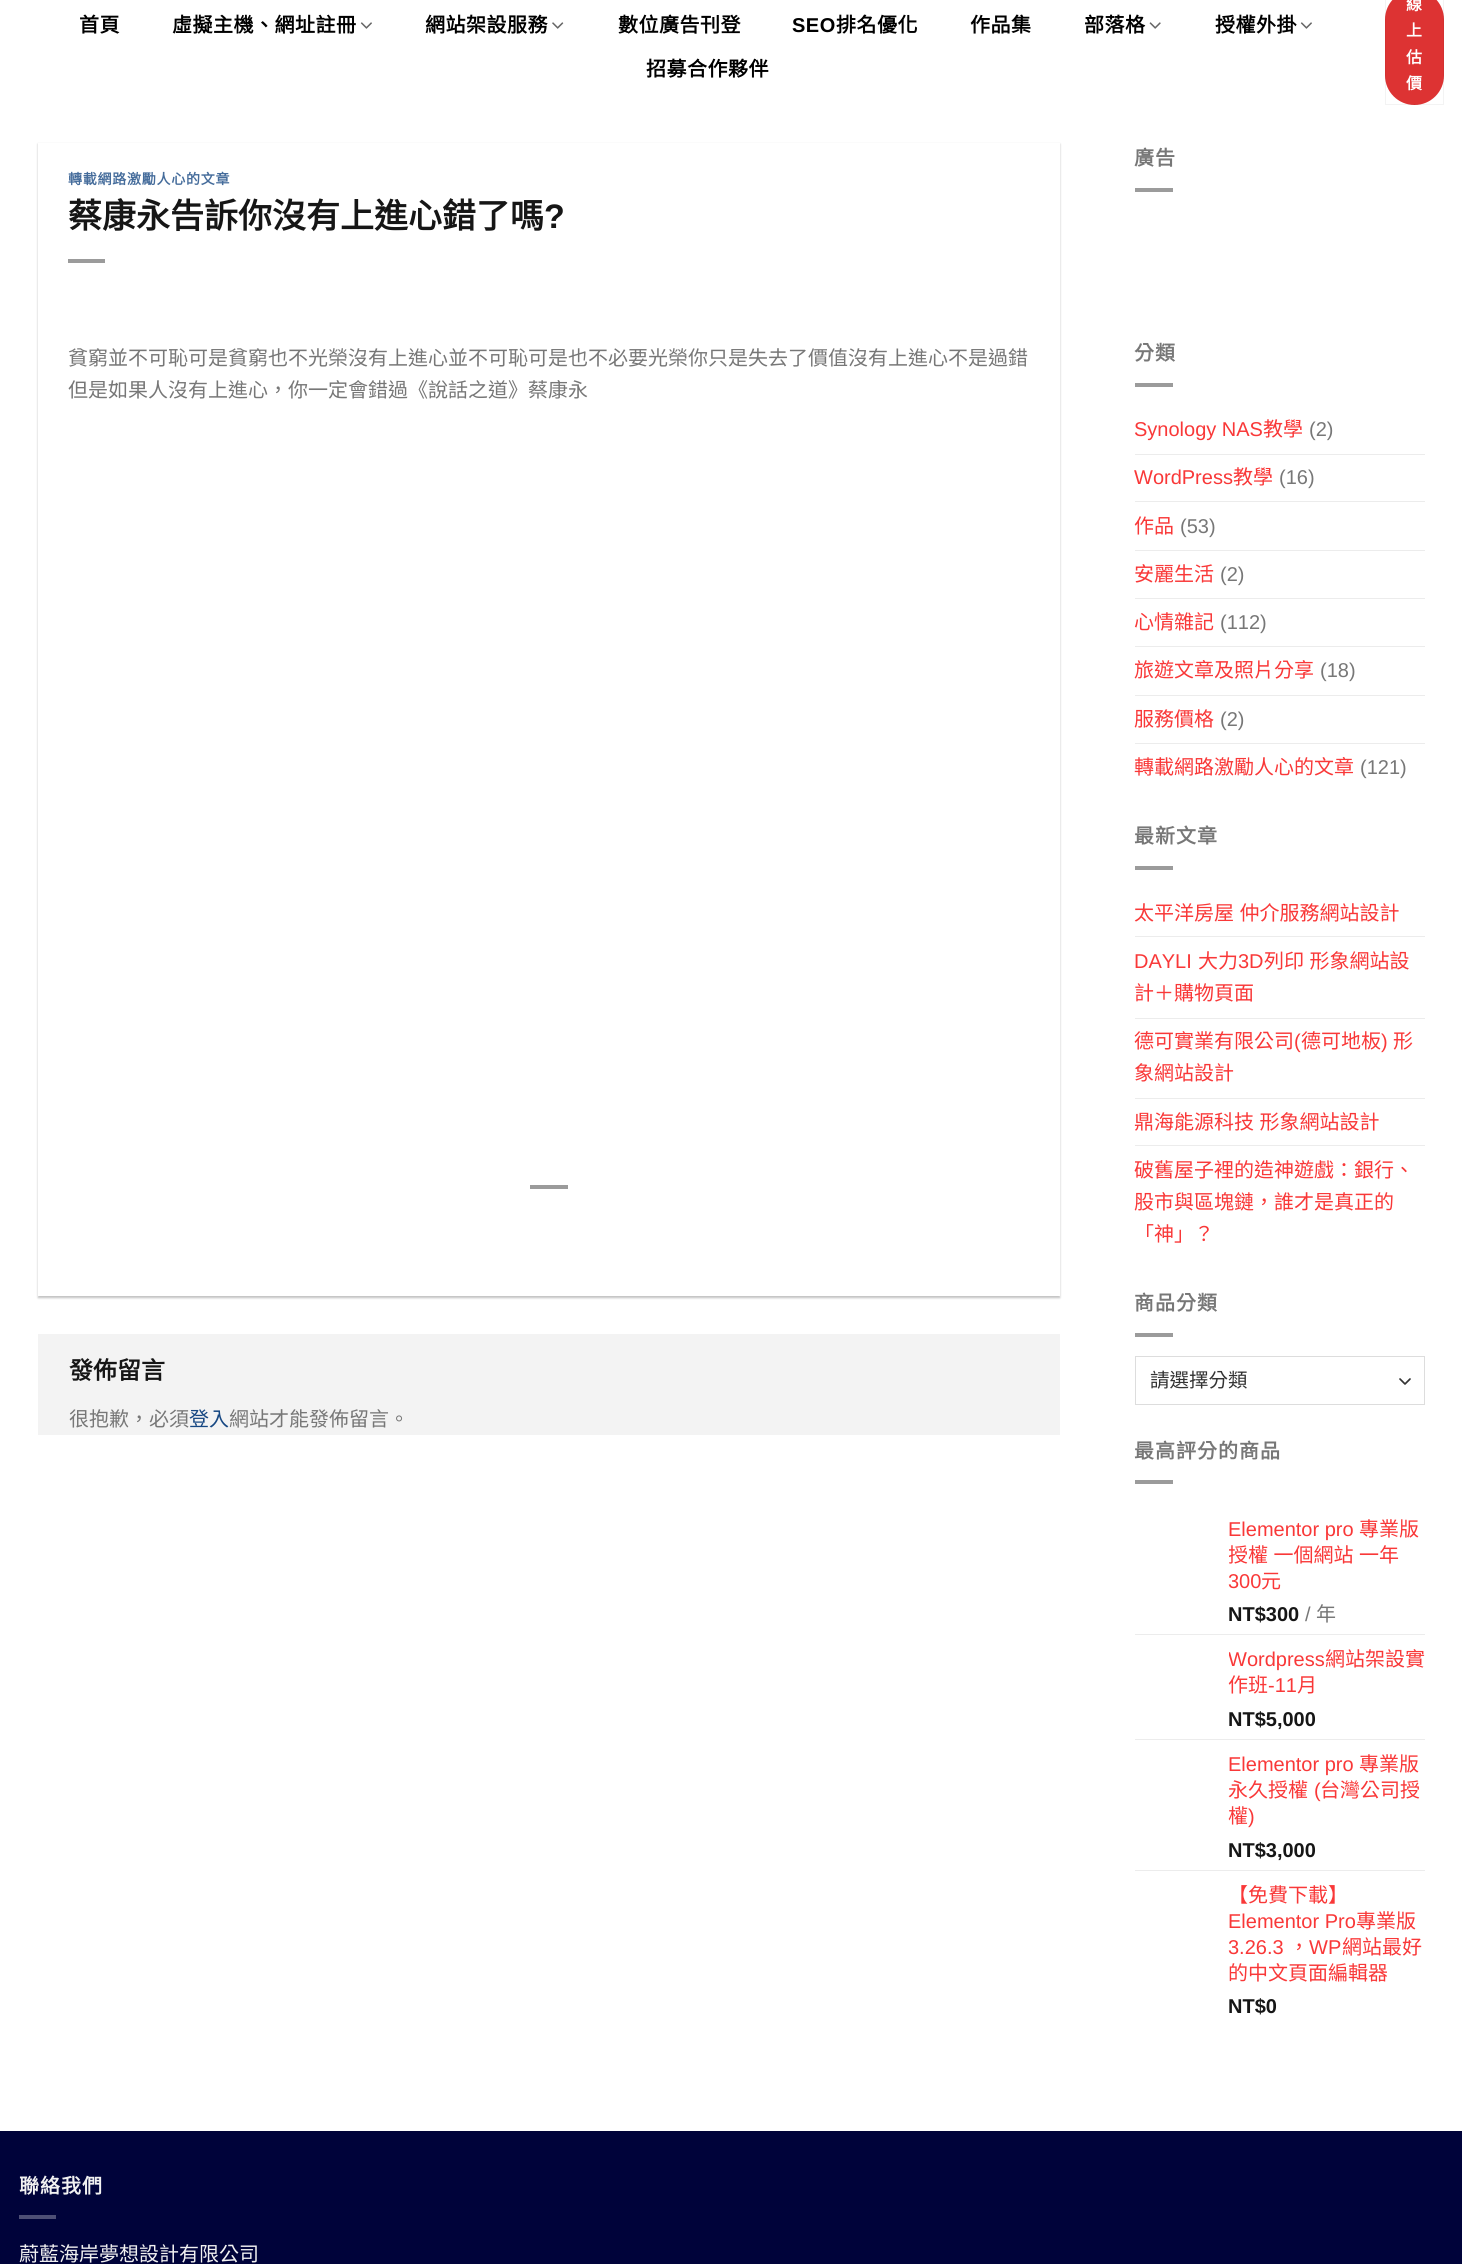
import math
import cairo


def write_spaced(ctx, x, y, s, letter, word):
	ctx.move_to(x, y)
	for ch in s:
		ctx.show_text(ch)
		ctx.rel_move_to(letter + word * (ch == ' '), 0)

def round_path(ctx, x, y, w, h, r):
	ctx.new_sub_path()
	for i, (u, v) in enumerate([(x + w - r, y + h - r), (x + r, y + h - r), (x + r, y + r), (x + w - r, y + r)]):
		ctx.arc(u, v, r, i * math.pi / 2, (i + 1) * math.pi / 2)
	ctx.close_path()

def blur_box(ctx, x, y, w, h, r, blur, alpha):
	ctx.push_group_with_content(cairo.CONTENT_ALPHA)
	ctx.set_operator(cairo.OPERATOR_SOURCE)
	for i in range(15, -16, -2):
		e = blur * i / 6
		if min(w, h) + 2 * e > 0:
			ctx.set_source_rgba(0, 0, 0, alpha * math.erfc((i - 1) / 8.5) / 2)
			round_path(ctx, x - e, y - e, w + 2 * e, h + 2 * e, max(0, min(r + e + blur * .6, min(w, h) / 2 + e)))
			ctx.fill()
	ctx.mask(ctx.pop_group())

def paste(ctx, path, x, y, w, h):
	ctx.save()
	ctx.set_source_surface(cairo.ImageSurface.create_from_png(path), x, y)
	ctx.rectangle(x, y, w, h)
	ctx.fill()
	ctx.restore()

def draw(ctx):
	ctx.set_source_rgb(1, 1, 1)
	ctx.paint()
	ctx.select_font_face('Noto Sans CJK TC', cairo.FONT_SLANT_NORMAL, cairo.FONT_WEIGHT_BOLD)
	ctx.set_font_size(20)
	ctx.set_source_rgb(0, 0, 0)
	write_spaced(ctx, 79, 32, '首頁', 0.5, 0)
	write_spaced(ctx, 172, 32, '虛擬主機、網址註冊', 0.5, 0)
	paste(ctx, 'media/1.png', 360, 22, 12, 7)
	write_spaced(ctx, 425, 32, '網站架設服務', 0.5, 0)
	paste(ctx, 'media/2.png', 552, 22, 12, 7)
	write_spaced(ctx, 618, 32, '數位廣告刊登', 0.5, 0)
	ctx.select_font_face('Liberation Sans', cairo.FONT_SLANT_NORMAL, cairo.FONT_WEIGHT_BOLD)
	write_spaced(ctx, 792, 32, 'SEO', 0.5, 0)
	ctx.select_font_face('Noto Sans CJK TC', cairo.FONT_SLANT_NORMAL, cairo.FONT_WEIGHT_BOLD)
	for x, y, s in [
		(836, 32, '排名優化'),
		(970, 32, '作品集'),
		(1084, 32, '部落格'),
	]:
		write_spaced(ctx, x, y, s, 0.5, 0)
	paste(ctx, 'media/3.png', 1149, 22, 12, 7)
	write_spaced(ctx, 1215, 32, '授權外掛', 0.5, 0)
	paste(ctx, 'media/1.png', 1300, 22, 12, 7)
	write_spaced(ctx, 646, 76, '招募合作夥伴', 0.5, 0)
	ctx.set_source_rgb(0.867, 0.2, 0.2)
	round_path(ctx, 1385, -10, 59, 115, 29.5)
	ctx.fill()
	ctx.rectangle(1385.5, -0.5, 58, 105)
	ctx.set_source_rgba(0, 0, 0, 0.05)
	ctx.set_line_width(1)
	ctx.stroke()
	ctx.set_font_size(16)
	ctx.set_source_rgb(1, 1, 1)
	for x, y, s in [
		(1406, 10, '線'),
		(1406, 36, '上'),
		(1406, 63, '估'),
		(1406, 89, '價'),
	]:
		ctx.move_to(x, y)
		ctx.show_text(s)
	ctx.save()
	ctx.set_fill_rule(cairo.FILL_RULE_EVEN_ODD)
	ctx.new_path()
	ctx.move_to(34, 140)
	ctx.line_to(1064, 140)
	ctx.line_to(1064, 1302)
	ctx.line_to(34, 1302)
	ctx.close_path()
	ctx.move_to(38, 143)
	ctx.line_to(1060, 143)
	ctx.line_to(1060, 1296)
	ctx.line_to(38, 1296)
	ctx.close_path()
	ctx.clip()
	ctx.set_source_rgb(0, 0, 0)
	blur_box(ctx, 38, 144, 1022, 1154, 0, 1, 0.24)
	ctx.restore()
	ctx.set_font_size(14)
	ctx.set_source_rgb(0.271, 0.424, 0.608)
	write_spaced(ctx, 68, 184, '轉載網路激勵人心的文章', 0.75, 0)
	ctx.set_font_size(34)
	ctx.set_source_rgb(0.086, 0.086, 0.086)
	ctx.move_to(68, 228)
	ctx.show_text('蔡康永告訴你沒有上進心錯了嗎')
	ctx.select_font_face('Liberation Sans', cairo.FONT_SLANT_NORMAL, cairo.FONT_WEIGHT_BOLD)
	ctx.move_to(544, 228)
	ctx.show_text('?')
	ctx.set_source_rgb(0.608, 0.608, 0.608)
	ctx.rectangle(68, 259, 37, 4)
	ctx.fill()
	ctx.select_font_face('Noto Sans CJK TC')
	ctx.set_font_size(20)
	ctx.set_source_rgb(0.467, 0.467, 0.467)
	ctx.move_to(68, 365)
	ctx.show_text('貧窮並不可恥可是貧窮也不光榮沒有上進心並不可恥可是也不必要光榮你只是失去了價值沒有上進心不是過錯')
	ctx.move_to(68, 397)
	ctx.show_text('但是如果人沒有上進心，你一定會錯過《說話之道》蔡康永')
	ctx.set_source_rgb(0.608, 0.608, 0.608)
	ctx.rectangle(530, 1185, 38, 4)
	ctx.fill()
	ctx.set_source_rgb(0.953, 0.953, 0.953)
	ctx.rectangle(38, 1334, 1022, 101)
	ctx.fill()
	ctx.select_font_face('Noto Sans CJK TC', cairo.FONT_SLANT_NORMAL, cairo.FONT_WEIGHT_BOLD)
	ctx.set_font_size(24)
	ctx.set_source_rgb(0.086, 0.086, 0.086)
	ctx.move_to(69, 1379)
	ctx.show_text('發佈留言')
	ctx.select_font_face('Noto Sans CJK TC')
	ctx.set_font_size(20)
	ctx.set_source_rgb(0.467, 0.467, 0.467)
	ctx.move_to(69, 1426)
	ctx.show_text('很抱歉，必須')
	ctx.set_source_rgb(0.086, 0.278, 0.51)
	ctx.move_to(189, 1426)
	ctx.show_text('登入')
	ctx.set_source_rgb(0.467, 0.467, 0.467)
	ctx.move_to(229, 1426)
	ctx.show_text('網站才能發佈留言。')
	ctx.select_font_face('Noto Sans CJK TC', cairo.FONT_SLANT_NORMAL, cairo.FONT_WEIGHT_BOLD)
	write_spaced(ctx, 1134, 165, '廣告', 1, 0)
	ctx.set_source_rgb(0.608, 0.608, 0.608)
	ctx.rectangle(1135, 188, 38, 4)
	ctx.fill()
	ctx.set_source_rgb(0.467, 0.467, 0.467)
	write_spaced(ctx, 1134, 360, '分類', 1, 0)
	ctx.set_source_rgb(0.608, 0.608, 0.608)
	ctx.rectangle(1135, 383, 38, 4)
	ctx.fill()
	ctx.select_font_face('Liberation Sans')
	ctx.set_source_rgb(0.976, 0.22, 0.22)
	ctx.move_to(1134, 436)
	ctx.show_text('Synology NAS')
	ctx.select_font_face('Noto Sans CJK TC')
	ctx.move_to(1263, 436)
	ctx.show_text('教學')
	ctx.select_font_face('Liberation Sans')
	ctx.set_source_rgb(0.467, 0.467, 0.467)
	ctx.move_to(1309, 436)
	ctx.show_text('(2)')
	ctx.set_source_rgb(0.925, 0.925, 0.925)
	ctx.rectangle(1135, 454, 290, 1)
	ctx.fill()
	ctx.set_source_rgb(0.976, 0.22, 0.22)
	ctx.move_to(1134, 484)
	ctx.show_text('WordPress')
	ctx.select_font_face('Noto Sans CJK TC')
	ctx.move_to(1233, 484)
	ctx.show_text('教學')
	ctx.select_font_face('Liberation Sans')
	ctx.set_source_rgb(0.467, 0.467, 0.467)
	ctx.move_to(1279, 484)
	ctx.show_text('(16)')
	ctx.set_source_rgb(0.925, 0.925, 0.925)
	ctx.rectangle(1135, 501, 290, 1)
	ctx.fill()
	ctx.select_font_face('Noto Sans CJK TC')
	ctx.set_source_rgb(0.976, 0.22, 0.22)
	ctx.move_to(1134, 533)
	ctx.show_text('作品')
	ctx.select_font_face('Liberation Sans')
	ctx.set_source_rgb(0.467, 0.467, 0.467)
	ctx.move_to(1180, 533)
	ctx.show_text('(53)')
	ctx.set_source_rgb(0.925, 0.925, 0.925)
	ctx.rectangle(1135, 550, 290, 1)
	ctx.fill()
	ctx.select_font_face('Noto Sans CJK TC')
	ctx.set_source_rgb(0.976, 0.22, 0.22)
	ctx.move_to(1134, 581)
	ctx.show_text('安麗生活')
	ctx.select_font_face('Liberation Sans')
	ctx.set_source_rgb(0.467, 0.467, 0.467)
	ctx.move_to(1220, 581)
	ctx.show_text('(2)')
	ctx.set_source_rgb(0.925, 0.925, 0.925)
	ctx.rectangle(1135, 598, 290, 1)
	ctx.fill()
	ctx.select_font_face('Noto Sans CJK TC')
	ctx.set_source_rgb(0.976, 0.22, 0.22)
	ctx.move_to(1134, 629)
	ctx.show_text('心情雜記')
	ctx.select_font_face('Liberation Sans')
	ctx.set_source_rgb(0.467, 0.467, 0.467)
	ctx.move_to(1220, 629)
	ctx.show_text('(112)')
	ctx.set_source_rgb(0.925, 0.925, 0.925)
	ctx.rectangle(1135, 646, 290, 1)
	ctx.fill()
	ctx.select_font_face('Noto Sans CJK TC')
	ctx.set_source_rgb(0.976, 0.22, 0.22)
	ctx.move_to(1134, 677)
	ctx.show_text('旅遊文章及照片分享')
	ctx.select_font_face('Liberation Sans')
	ctx.set_source_rgb(0.467, 0.467, 0.467)
	ctx.move_to(1320, 677)
	ctx.show_text('(18)')
	ctx.set_source_rgb(0.925, 0.925, 0.925)
	ctx.rectangle(1135, 695, 290, 1)
	ctx.fill()
	ctx.select_font_face('Noto Sans CJK TC')
	ctx.set_source_rgb(0.976, 0.22, 0.22)
	ctx.move_to(1134, 726)
	ctx.show_text('服務價格')
	ctx.select_font_face('Liberation Sans')
	ctx.set_source_rgb(0.467, 0.467, 0.467)
	ctx.move_to(1220, 726)
	ctx.show_text('(2)')
	ctx.set_source_rgb(0.925, 0.925, 0.925)
	ctx.rectangle(1135, 743, 290, 1)
	ctx.fill()
	ctx.select_font_face('Noto Sans CJK TC')
	ctx.set_source_rgb(0.976, 0.22, 0.22)
	ctx.move_to(1134, 774)
	ctx.show_text('轉載網路激勵人心的文章')
	ctx.select_font_face('Liberation Sans')
	ctx.set_source_rgb(0.467, 0.467, 0.467)
	ctx.move_to(1360, 774)
	ctx.show_text('(121)')
	ctx.select_font_face('Noto Sans CJK TC', cairo.FONT_SLANT_NORMAL, cairo.FONT_WEIGHT_BOLD)
	write_spaced(ctx, 1134, 843, '最新文章', 1, 0)
	ctx.set_source_rgb(0.608, 0.608, 0.608)
	ctx.rectangle(1135, 866, 38, 4)
	ctx.fill()
	ctx.select_font_face('Noto Sans CJK TC')
	ctx.set_source_rgb(0.976, 0.22, 0.22)
	write_spaced(ctx, 1134, 920, '太平洋房屋 仲介服務網站設計', 0, 1)
	ctx.set_source_rgb(0.925, 0.925, 0.925)
	ctx.rectangle(1135, 936, 290, 1)
	ctx.fill()
	ctx.select_font_face('Liberation Sans')
	ctx.set_source_rgb(0.976, 0.22, 0.22)
	ctx.move_to(1134, 968)
	ctx.show_text('DAYLI')
	ctx.select_font_face('Noto Sans CJK TC')
	ctx.move_to(1198, 968)
	ctx.show_text('大力')
	ctx.select_font_face('Liberation Sans')
	ctx.move_to(1238, 968)
	ctx.show_text('3D')
	ctx.select_font_face('Noto Sans CJK TC')
	write_spaced(ctx, 1264, 968, '列印 形象網站設', 0, 1)
	ctx.move_to(1134, 1000)
	ctx.show_text('計＋購物頁面')
	ctx.set_source_rgb(0.925, 0.925, 0.925)
	ctx.rectangle(1135, 1018, 290, 1)
	ctx.fill()
	ctx.set_source_rgb(0.976, 0.22, 0.22)
	ctx.move_to(1134, 1048)
	ctx.show_text('德可實業有限公司')
	ctx.select_font_face('Liberation Sans')
	ctx.move_to(1294, 1048)
	ctx.show_text('(')
	ctx.select_font_face('Noto Sans CJK TC')
	ctx.move_to(1301, 1048)
	ctx.show_text('德可地板')
	ctx.select_font_face('Liberation Sans')
	ctx.move_to(1381, 1048)
	ctx.show_text(')')
	ctx.select_font_face('Noto Sans CJK TC')
	ctx.move_to(1393, 1048)
	ctx.show_text('形')
	ctx.move_to(1134, 1080)
	ctx.show_text('象網站設計')
	ctx.set_source_rgb(0.925, 0.925, 0.925)
	ctx.rectangle(1135, 1098, 290, 1)
	ctx.fill()
	ctx.set_source_rgb(0.976, 0.22, 0.22)
	write_spaced(ctx, 1134, 1129, '鼎海能源科技 形象網站設計', 0, 1)
	ctx.set_source_rgb(0.925, 0.925, 0.925)
	ctx.rectangle(1135, 1145, 290, 1)
	ctx.fill()
	ctx.set_source_rgb(0.976, 0.22, 0.22)
	for x, y, s in [
		(1134, 1177, '破舊屋子裡的造神遊戲：銀行、'),
		(1134, 1209, '股市與區塊鏈，誰才是真正的'),
		(1134, 1241, '「神」？'),
	]:
		ctx.move_to(x, y)
		ctx.show_text(s)
	ctx.select_font_face('Noto Sans CJK TC', cairo.FONT_SLANT_NORMAL, cairo.FONT_WEIGHT_BOLD)
	ctx.set_source_rgb(0.467, 0.467, 0.467)
	write_spaced(ctx, 1134, 1310, '商品分類', 1, 0)
	ctx.set_source_rgb(0.608, 0.608, 0.608)
	ctx.rectangle(1135, 1333, 38, 4)
	ctx.fill()
	ctx.new_path()
	ctx.move_to(1400, 1379)
	ctx.line_to(1405, 1384)
	ctx.line_to(1410, 1379)
	ctx.set_source_rgb(0.2, 0.2, 0.2)
	ctx.set_line_width(1.7)
	ctx.set_line_cap(cairo.LINE_CAP_ROUND)
	ctx.set_line_join(cairo.LINE_JOIN_ROUND)
	ctx.stroke()
	ctx.rectangle(1135.5, 1356.5, 289, 48)
	ctx.set_source_rgb(0.867, 0.867, 0.867)
	ctx.set_line_width(1)
	ctx.set_line_cap(cairo.LINE_CAP_BUTT)
	ctx.set_line_join(cairo.LINE_JOIN_MITER)
	ctx.stroke()
	ctx.select_font_face('Noto Sans CJK TC')
	ctx.set_font_size(19.5)
	ctx.set_source_rgb(0.2, 0.2, 0.2)
	ctx.move_to(1150, 1387)
	ctx.show_text('請選擇分類')
	ctx.select_font_face('Noto Sans CJK TC', cairo.FONT_SLANT_NORMAL, cairo.FONT_WEIGHT_BOLD)
	ctx.set_font_size(20)
	ctx.set_source_rgb(0.467, 0.467, 0.467)
	write_spaced(ctx, 1134, 1458, '最高評分的商品', 1, 0)
	ctx.set_source_rgb(0.608, 0.608, 0.608)
	ctx.rectangle(1135, 1480, 38, 4)
	ctx.fill()
	ctx.select_font_face('Liberation Sans')
	ctx.set_source_rgb(0.976, 0.22, 0.22)
	ctx.move_to(1228, 1536)
	ctx.show_text('Elementor pro')
	ctx.select_font_face('Noto Sans CJK TC')
	ctx.move_to(1359, 1536)
	ctx.show_text('專業版')
	ctx.save()
	ctx.rectangle(1229, 1516, 196, 79)
	ctx.clip()
	write_spaced(ctx, 1228, 1562, '授權 一個網站 一年', 0, 1)
	ctx.restore()
	ctx.select_font_face('Liberation Sans')
	ctx.move_to(1228, 1588)
	ctx.show_text('300')
	ctx.select_font_face('Noto Sans CJK TC')
	ctx.move_to(1261, 1588)
	ctx.show_text('元')
	ctx.select_font_face('Liberation Sans', cairo.FONT_SLANT_NORMAL, cairo.FONT_WEIGHT_BOLD)
	ctx.set_source_rgb(0.086, 0.086, 0.086)
	ctx.move_to(1228, 1621)
	ctx.show_text('NT$300')
	ctx.select_font_face('Liberation Sans')
	ctx.set_source_rgb(0.467, 0.467, 0.467)
	ctx.move_to(1305, 1621)
	ctx.show_text('/')
	ctx.select_font_face('Noto Sans CJK TC')
	ctx.move_to(1316, 1621)
	ctx.show_text('年')
	ctx.set_source_rgb(0.925, 0.925, 0.925)
	ctx.rectangle(1135, 1634, 290, 1)
	ctx.fill()
	ctx.save()
	ctx.rectangle(1229, 1648, 196, 52)
	ctx.clip()
	ctx.select_font_face('Liberation Sans')
	ctx.set_source_rgb(0.976, 0.22, 0.22)
	ctx.move_to(1228, 1666)
	ctx.show_text('Wordpress')
	ctx.restore()
	ctx.set_source_rgb(0.976, 0.22, 0.22)
	ctx.move_to(1325, 1666)
	ctx.show_text('網站架設實')
	ctx.move_to(1228, 1692)
	ctx.show_text('作班')
	ctx.select_font_face('Liberation Sans')
	ctx.move_to(1268, 1692)
	ctx.show_text('-11')
	ctx.select_font_face('Noto Sans CJK TC')
	ctx.move_to(1297, 1692)
	ctx.show_text('月')
	ctx.select_font_face('Liberation Sans', cairo.FONT_SLANT_NORMAL, cairo.FONT_WEIGHT_BOLD)
	ctx.set_source_rgb(0.086, 0.086, 0.086)
	ctx.move_to(1228, 1726)
	ctx.show_text('NT$5,000')
	ctx.set_source_rgb(0.925, 0.925, 0.925)
	ctx.rectangle(1135, 1739, 290, 1)
	ctx.fill()
	ctx.select_font_face('Liberation Sans')
	ctx.set_source_rgb(0.976, 0.22, 0.22)
	ctx.move_to(1228, 1771)
	ctx.show_text('Elementor pro')
	ctx.select_font_face('Noto Sans CJK TC')
	ctx.move_to(1359, 1771)
	ctx.show_text('專業版')
	ctx.move_to(1228, 1797)
	ctx.show_text('永久授權')
	ctx.select_font_face('Liberation Sans')
	ctx.move_to(1314, 1797)
	ctx.show_text('(')
	ctx.select_font_face('Noto Sans CJK TC')
	ctx.move_to(1320, 1797)
	ctx.show_text('台灣公司授')
	ctx.move_to(1228, 1823)
	ctx.show_text('權')
	ctx.select_font_face('Liberation Sans')
	ctx.move_to(1248, 1823)
	ctx.show_text(')')
	ctx.select_font_face('Liberation Sans', cairo.FONT_SLANT_NORMAL, cairo.FONT_WEIGHT_BOLD)
	ctx.set_source_rgb(0.086, 0.086, 0.086)
	ctx.move_to(1228, 1857)
	ctx.show_text('NT$3,000')
	ctx.set_source_rgb(0.925, 0.925, 0.925)
	ctx.rectangle(1135, 1870, 290, 1)
	ctx.fill()
	ctx.select_font_face('Noto Sans CJK TC')
	ctx.set_source_rgb(0.976, 0.22, 0.22)
	ctx.move_to(1228, 1902)
	ctx.show_text('【免費下載】')
	ctx.select_font_face('Liberation Sans')
	ctx.move_to(1228, 1928)
	ctx.show_text('Elementor Pro')
	ctx.select_font_face('Noto Sans CJK TC')
	ctx.move_to(1356, 1928)
	ctx.show_text('專業版')
	ctx.select_font_face('Liberation Sans')
	ctx.move_to(1228, 1954)
	ctx.show_text('3.26.3')
	ctx.select_font_face('Noto Sans CJK TC')
	ctx.move_to(1289, 1954)
	ctx.show_text('，')
	ctx.select_font_face('Liberation Sans')
	ctx.move_to(1309, 1954)
	ctx.show_text('WP')
	ctx.select_font_face('Noto Sans CJK TC')
	ctx.move_to(1342, 1954)
	ctx.show_text('網站最好')
	ctx.move_to(1228, 1980)
	ctx.show_text('的中文頁面編輯器')
	ctx.select_font_face('Liberation Sans', cairo.FONT_SLANT_NORMAL, cairo.FONT_WEIGHT_BOLD)
	ctx.set_source_rgb(0.086, 0.086, 0.086)
	ctx.move_to(1228, 2013)
	ctx.show_text('NT$0')
	ctx.set_source_rgb(0, 0.012, 0.227)
	ctx.rectangle(0, 2132, 1462, 132)
	ctx.fill()
	ctx.set_source_rgb(0, 0.012, 0.216)
	ctx.rectangle(0, 2131, 1462, 1)
	ctx.fill()
	ctx.select_font_face('Noto Sans CJK TC', cairo.FONT_SLANT_NORMAL, cairo.FONT_WEIGHT_BOLD)
	ctx.set_source_rgb(0.945, 0.945, 0.945)
	write_spaced(ctx, 19, 2193, '聯絡我們', 1, 0)
	ctx.set_source_rgb(0.302, 0.31, 0.459)
	ctx.rectangle(19, 2215, 37, 4)
	ctx.fill()
	ctx.select_font_face('Noto Sans CJK TC')
	ctx.set_source_rgb(0.945, 0.945, 0.945)
	ctx.move_to(19, 2261)
	ctx.show_text('蔚藍海岸夢想設計有限公司')


surface = cairo.ImageSurface(cairo.FORMAT_RGB24, 1462, 2264)
ctx = cairo.Context(surface)
options = cairo.FontOptions()
options.set_hint_metrics(cairo.HINT_METRICS_OFF)
options.set_hint_style(cairo.HINT_STYLE_NONE)
ctx.set_font_options(options)
ctx.set_miter_limit(4)
draw(ctx)
surface.write_to_png('image.png')
